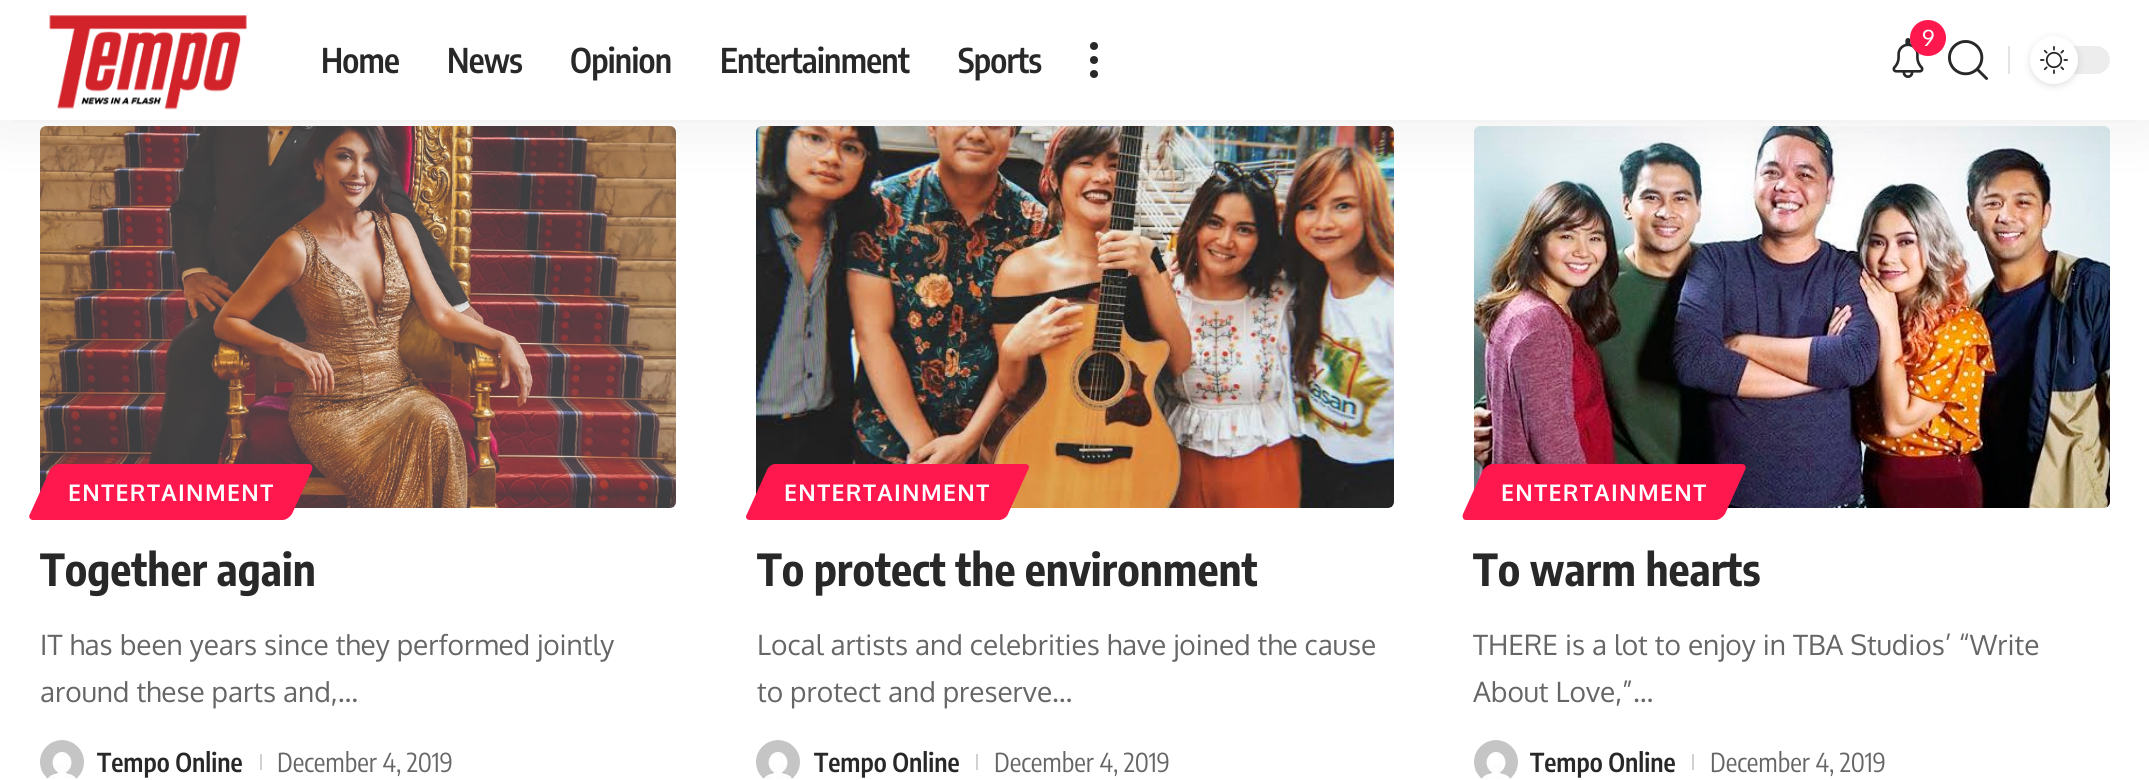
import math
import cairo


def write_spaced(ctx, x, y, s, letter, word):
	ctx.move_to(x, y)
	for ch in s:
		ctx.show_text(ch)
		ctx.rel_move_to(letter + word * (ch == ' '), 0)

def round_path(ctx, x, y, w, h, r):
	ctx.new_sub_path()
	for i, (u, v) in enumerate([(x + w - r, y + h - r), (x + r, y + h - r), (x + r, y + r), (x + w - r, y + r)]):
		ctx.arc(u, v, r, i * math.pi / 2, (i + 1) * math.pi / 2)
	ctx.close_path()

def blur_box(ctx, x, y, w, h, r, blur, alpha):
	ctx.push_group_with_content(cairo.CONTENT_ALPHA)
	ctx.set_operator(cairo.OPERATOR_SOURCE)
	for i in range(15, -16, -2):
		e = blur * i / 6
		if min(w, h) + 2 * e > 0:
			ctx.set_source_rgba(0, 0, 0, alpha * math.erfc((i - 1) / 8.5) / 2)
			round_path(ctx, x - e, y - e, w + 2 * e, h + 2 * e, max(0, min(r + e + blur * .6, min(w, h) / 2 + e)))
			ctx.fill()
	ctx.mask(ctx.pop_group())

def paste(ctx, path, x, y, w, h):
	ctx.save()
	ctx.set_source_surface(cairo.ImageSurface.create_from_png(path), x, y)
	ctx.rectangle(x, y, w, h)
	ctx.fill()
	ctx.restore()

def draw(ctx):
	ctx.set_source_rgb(1, 1, 1)
	ctx.paint()
	paste(ctx, 'media/5.png', 40, 126, 636, 382)
	paste(ctx, 'media/7.png', 756, 126, 638, 382)
	paste(ctx, 'media/9.png', 1474, 126, 636, 382)
	ctx.set_source_rgb(0, 0, 0)
	blur_box(ctx, 0, 8, 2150, 120, 0, 30, 0.07)
	ctx.set_source_rgb(1, 1, 1)
	ctx.rectangle(0, 0, 2149, 120)
	ctx.fill()
	paste(ctx, 'media/1.png', 1892, 38, 32, 40)
	ctx.set_source_rgb(1, 0.094, 0.306)
	ctx.arc(1928, 38, 18, 0, 2 * math.pi)
	ctx.fill()
	ctx.select_font_face('Oxygen')
	ctx.set_font_size(22)
	ctx.set_source_rgb(1, 1, 1)
	ctx.move_to(1922, 46)
	ctx.show_text('9')
	ctx.set_source_rgb(0.894, 0.894, 0.894)
	ctx.rectangle(2008, 46, 2, 28)
	ctx.fill()
	ctx.set_source_rgb(0.929, 0.929, 0.929)
	round_path(ctx, 2030, 46, 80, 28, 14)
	ctx.fill()
	ctx.set_source_rgb(0, 0, 0)
	blur_box(ctx, 2030, 38, 48, 48, 24, 4, 0.12)
	ctx.set_source_rgb(1, 1, 1)
	ctx.arc(2054, 60, 24, 0, 2 * math.pi)
	ctx.fill()
	paste(ctx, 'media/2.png', 2040, 46, 28, 28)
	paste(ctx, 'media/3.png', 1948, 40, 40, 40)
	paste(ctx, 'media/4.png', 49, 15, 198, 95)
	ctx.select_font_face('Encode Sans Condensed SemiBold')
	ctx.set_font_size(34)
	ctx.set_source_rgb(0.157, 0.157, 0.157)
	for x, y, s in [
		(321, 73, 'Home'),
		(447, 73, 'News'),
		(570, 73, 'Opinion'),
		(720, 73, 'Entertainment'),
		(958, 73, 'Sports'),
	]:
		write_spaced(ctx, x, y, s, -0.75, 0)
	ctx.new_path()
	ctx.arc(1094, 46, 4, 0, 2 * math.pi)
	ctx.fill()
	ctx.arc(1094, 60, 4, 0, 2 * math.pi)
	ctx.fill()
	ctx.arc(1094, 74, 4, 0, 2 * math.pi)
	ctx.fill()
	ctx.set_source_rgb(1, 0.094, 0.306)
	ctx.new_path()
	ctx.move_to(59, 464)
	ctx.line_to(309, 464)
	ctx.curve_to(312, 464, 313, 467, 312, 470)
	ctx.line_to(292, 514)
	ctx.curve_to(290, 517, 286, 520, 283, 520)
	ctx.line_to(33, 520)
	ctx.curve_to(30, 520, 28, 517, 30, 514)
	ctx.line_to(50, 470)
	ctx.curve_to(52, 467, 56, 464, 59, 464)
	ctx.close_path()
	ctx.fill()
	ctx.select_font_face('Oxygen', cairo.FONT_SLANT_NORMAL, cairo.FONT_WEIGHT_BOLD)
	ctx.set_font_size(23)
	ctx.set_source_rgb(1, 1, 1)
	write_spaced(ctx, 68, 501, 'ENTERTAINMENT', 1.4, 0)
	ctx.select_font_face('Encode Sans Condensed', cairo.FONT_SLANT_NORMAL, cairo.FONT_WEIGHT_BOLD)
	ctx.set_font_size(44)
	ctx.set_source_rgb(0.157, 0.157, 0.157)
	ctx.move_to(40, 586)
	ctx.show_text('Together again')
	ctx.select_font_face('Oxygen')
	ctx.set_font_size(28)
	ctx.set_source_rgb(0.4, 0.4, 0.4)
	ctx.move_to(40, 655)
	ctx.show_text('IT has been years since they performed jointly')
	ctx.move_to(40, 702)
	ctx.show_text('around these parts and,…')
	paste(ctx, 'media/6.png', 40, 740, 44, 39)
	ctx.select_font_face('Encode Sans Condensed SemiBold')
	ctx.set_font_size(26)
	ctx.set_source_rgb(0.157, 0.157, 0.157)
	ctx.move_to(97, 772)
	ctx.show_text('Tempo Online')
	ctx.set_source_rgb(0.82, 0.82, 0.82)
	ctx.rectangle(260, 754, 2, 16)
	ctx.fill()
	ctx.select_font_face('Encode Sans Condensed')
	ctx.set_source_rgb(0.4, 0.4, 0.4)
	ctx.move_to(277, 772)
	ctx.show_text('December 4, 2019')
	ctx.set_source_rgb(1, 0.094, 0.306)
	ctx.new_path()
	ctx.move_to(775, 464)
	ctx.line_to(1025, 464)
	ctx.curve_to(1029, 464, 1030, 467, 1028, 470)
	ctx.line_to(1008, 514)
	ctx.curve_to(1007, 517, 1003, 520, 999, 520)
	ctx.line_to(750, 520)
	ctx.curve_to(746, 520, 745, 517, 747, 514)
	ctx.line_to(767, 470)
	ctx.curve_to(768, 467, 772, 464, 775, 464)
	ctx.close_path()
	ctx.fill()
	ctx.select_font_face('Oxygen', cairo.FONT_SLANT_NORMAL, cairo.FONT_WEIGHT_BOLD)
	ctx.set_font_size(23)
	ctx.set_source_rgb(1, 1, 1)
	write_spaced(ctx, 784, 501, 'ENTERTAINMENT', 1.4, 0)
	ctx.select_font_face('Encode Sans Condensed', cairo.FONT_SLANT_NORMAL, cairo.FONT_WEIGHT_BOLD)
	ctx.set_font_size(44)
	ctx.set_source_rgb(0.157, 0.157, 0.157)
	ctx.move_to(757, 586)
	ctx.show_text('To protect the environment')
	ctx.select_font_face('Oxygen')
	ctx.set_font_size(28)
	ctx.set_source_rgb(0.4, 0.4, 0.4)
	ctx.move_to(757, 655)
	ctx.show_text('Local artists and celebrities have joined the cause')
	ctx.move_to(757, 702)
	ctx.show_text('to protect and preserve…')
	paste(ctx, 'media/8.png', 756, 740, 44, 39)
	ctx.select_font_face('Encode Sans Condensed SemiBold')
	ctx.set_font_size(26)
	ctx.set_source_rgb(0.157, 0.157, 0.157)
	ctx.move_to(814, 772)
	ctx.show_text('Tempo Online')
	ctx.set_source_rgb(0.82, 0.82, 0.82)
	ctx.rectangle(976, 754, 2, 16)
	ctx.fill()
	ctx.select_font_face('Encode Sans Condensed')
	ctx.set_source_rgb(0.4, 0.4, 0.4)
	ctx.move_to(994, 772)
	ctx.show_text('December 4, 2019')
	ctx.set_source_rgb(1, 0.094, 0.306)
	ctx.new_path()
	ctx.move_to(1492, 464)
	ctx.line_to(1742, 464)
	ctx.curve_to(1745, 464, 1747, 467, 1745, 470)
	ctx.line_to(1725, 514)
	ctx.curve_to(1723, 517, 1719, 520, 1716, 520)
	ctx.line_to(1466, 520)
	ctx.curve_to(1463, 520, 1462, 517, 1463, 514)
	ctx.line_to(1483, 470)
	ctx.curve_to(1485, 467, 1489, 464, 1492, 464)
	ctx.close_path()
	ctx.fill()
	ctx.select_font_face('Oxygen', cairo.FONT_SLANT_NORMAL, cairo.FONT_WEIGHT_BOLD)
	ctx.set_font_size(23)
	ctx.set_source_rgb(1, 1, 1)
	write_spaced(ctx, 1501, 501, 'ENTERTAINMENT', 1.4, 0)
	ctx.select_font_face('Encode Sans Condensed', cairo.FONT_SLANT_NORMAL, cairo.FONT_WEIGHT_BOLD)
	ctx.set_font_size(44)
	ctx.set_source_rgb(0.157, 0.157, 0.157)
	ctx.move_to(1473, 586)
	ctx.show_text('To warm hearts')
	ctx.select_font_face('Oxygen')
	ctx.set_font_size(28)
	ctx.set_source_rgb(0.4, 0.4, 0.4)
	ctx.move_to(1473, 655)
	ctx.show_text('THERE is a lot to enjoy in TBA Studios’ “Write')
	ctx.move_to(1473, 702)
	ctx.show_text('About Love,”…')
	paste(ctx, 'media/6.png', 1474, 740, 44, 39)
	ctx.select_font_face('Encode Sans Condensed SemiBold')
	ctx.set_font_size(26)
	ctx.set_source_rgb(0.157, 0.157, 0.157)
	ctx.move_to(1530, 772)
	ctx.show_text('Tempo Online')
	ctx.set_source_rgb(0.82, 0.82, 0.82)
	ctx.rectangle(1692, 754, 2, 16)
	ctx.fill()
	ctx.select_font_face('Encode Sans Condensed')
	ctx.set_source_rgb(0.4, 0.4, 0.4)
	ctx.move_to(1710, 772)
	ctx.show_text('December 4, 2019')


surface = cairo.ImageSurface(cairo.FORMAT_RGB24, 2149, 780)
ctx = cairo.Context(surface)
options = cairo.FontOptions()
options.set_hint_metrics(cairo.HINT_METRICS_OFF)
options.set_hint_style(cairo.HINT_STYLE_NONE)
ctx.set_font_options(options)
ctx.set_miter_limit(4)
draw(ctx)
surface.write_to_png('image.png')
